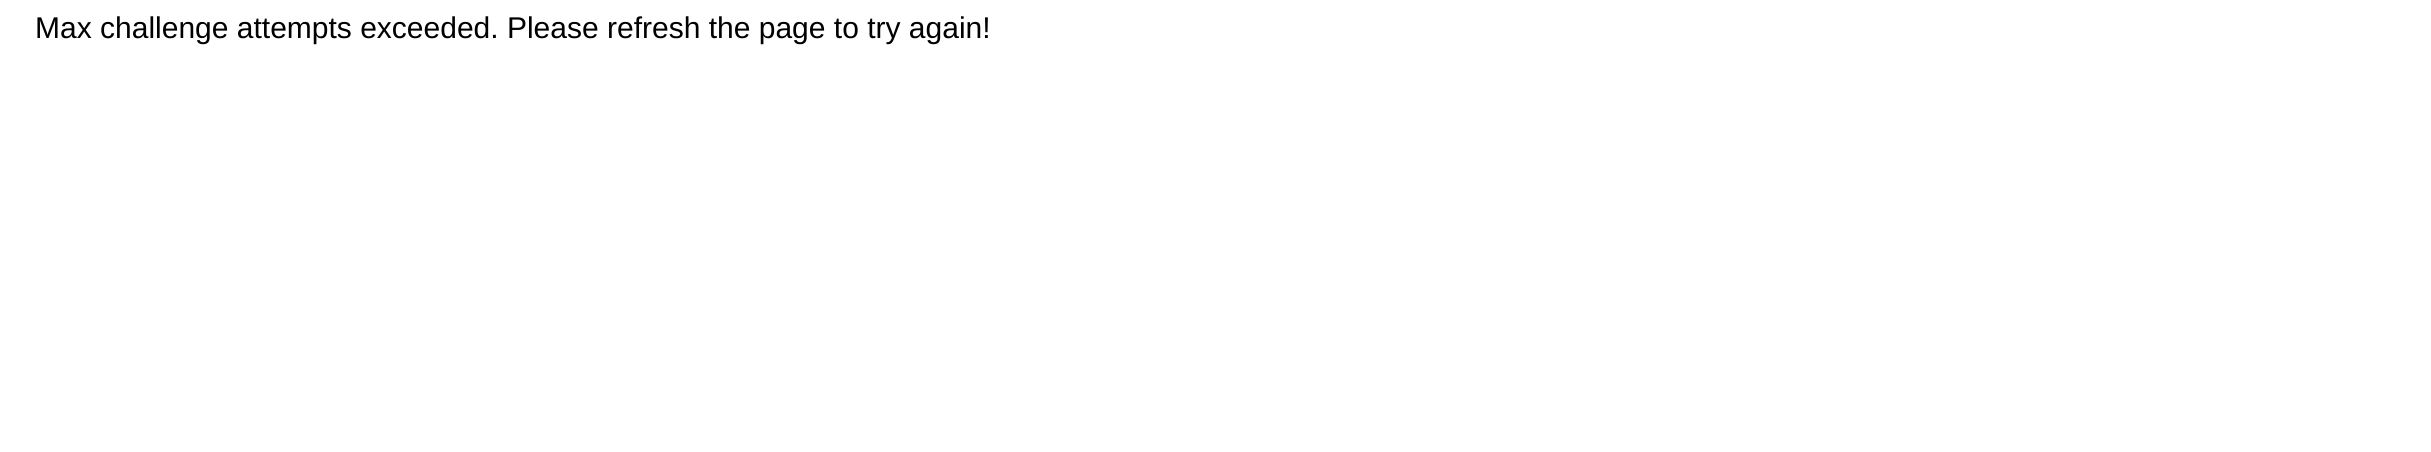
import math
import cairo


def draw(ctx):
	ctx.set_source_rgb(1, 1, 1)
	ctx.paint()
	ctx.select_font_face('Liberation Sans')
	ctx.set_font_size(30)
	ctx.set_source_rgb(0, 0, 0)
	ctx.move_to(35, 38)
	ctx.show_text('Max challenge attempts exceeded. Please refresh the page to try again!')


surface = cairo.ImageSurface(cairo.FORMAT_RGB24, 2431, 452)
ctx = cairo.Context(surface)
options = cairo.FontOptions()
options.set_hint_metrics(cairo.HINT_METRICS_OFF)
options.set_hint_style(cairo.HINT_STYLE_NONE)
ctx.set_font_options(options)
ctx.set_miter_limit(4)
draw(ctx)
surface.write_to_png('image.png')
